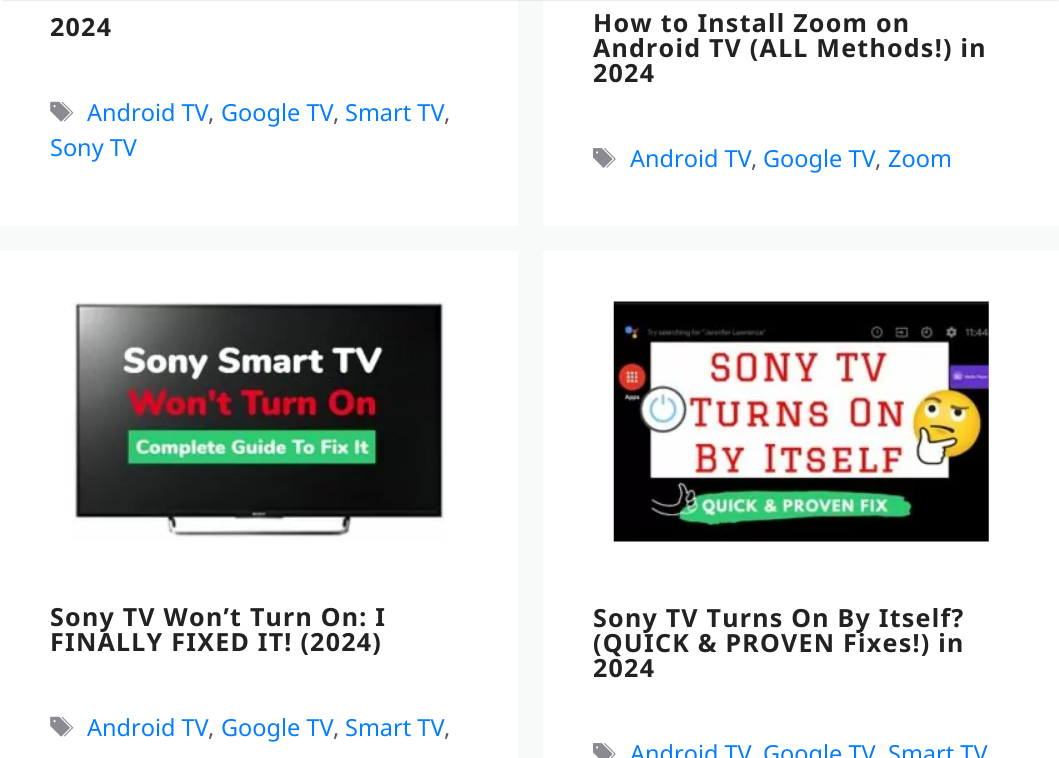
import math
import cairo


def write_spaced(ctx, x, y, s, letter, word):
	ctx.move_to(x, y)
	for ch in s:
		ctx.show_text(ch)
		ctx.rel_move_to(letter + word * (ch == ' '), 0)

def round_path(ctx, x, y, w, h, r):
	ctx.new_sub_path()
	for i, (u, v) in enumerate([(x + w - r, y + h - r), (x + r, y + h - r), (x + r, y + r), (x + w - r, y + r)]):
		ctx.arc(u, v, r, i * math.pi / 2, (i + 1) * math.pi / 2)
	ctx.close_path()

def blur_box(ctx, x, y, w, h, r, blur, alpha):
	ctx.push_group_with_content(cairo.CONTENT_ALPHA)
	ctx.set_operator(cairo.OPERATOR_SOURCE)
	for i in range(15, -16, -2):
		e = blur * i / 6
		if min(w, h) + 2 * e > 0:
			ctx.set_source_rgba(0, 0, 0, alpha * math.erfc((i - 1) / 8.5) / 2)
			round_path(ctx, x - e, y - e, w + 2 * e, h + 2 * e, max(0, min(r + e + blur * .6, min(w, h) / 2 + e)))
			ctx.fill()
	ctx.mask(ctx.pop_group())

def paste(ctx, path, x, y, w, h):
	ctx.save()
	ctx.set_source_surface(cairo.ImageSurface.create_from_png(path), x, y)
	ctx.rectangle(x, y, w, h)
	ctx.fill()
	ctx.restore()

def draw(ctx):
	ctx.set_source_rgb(0.969, 0.973, 0.976)
	ctx.paint()
	ctx.set_source_rgb(1, 1, 1)
	ctx.rectangle(0, 0, 518, 226)
	ctx.fill()
	ctx.rectangle(543, 0, 516, 226)
	ctx.fill()
	ctx.set_source_rgb(0, 0, 0)
	blur_box(ctx, 3, -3, 1055, 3, 0, 1, 0.2)
	ctx.select_font_face('Noto Sans', cairo.FONT_SLANT_NORMAL, cairo.FONT_WEIGHT_BOLD)
	ctx.set_font_size(25)
	ctx.set_source_rgb(0.133, 0.133, 0.133)
	write_spaced(ctx, 50, 36, '2024', 1.25, 0)
	paste(ctx, 'media/1.png', 50, 101, 24, 21)
	ctx.select_font_face('Noto Sans')
	ctx.set_font_size(23.5)
	ctx.set_source_rgb(0.02, 0.49, 1)
	ctx.move_to(87, 121)
	ctx.show_text('Android TV')
	ctx.set_source_rgb(0.341, 0.341, 0.376)
	ctx.move_to(208, 121)
	ctx.show_text(',')
	ctx.set_source_rgb(0.02, 0.49, 1)
	ctx.move_to(221, 121)
	ctx.show_text('Google TV')
	ctx.set_source_rgb(0.341, 0.341, 0.376)
	ctx.move_to(333, 121)
	ctx.show_text(',')
	ctx.set_source_rgb(0.02, 0.49, 1)
	ctx.move_to(345, 121)
	ctx.show_text('Smart TV')
	ctx.set_source_rgb(0.341, 0.341, 0.376)
	ctx.move_to(444, 121)
	ctx.show_text(',')
	ctx.set_source_rgb(0.02, 0.49, 1)
	ctx.move_to(50, 156)
	ctx.show_text('Sony TV')
	ctx.select_font_face('Noto Sans', cairo.FONT_SLANT_NORMAL, cairo.FONT_WEIGHT_BOLD)
	ctx.set_font_size(25)
	ctx.set_source_rgb(0.133, 0.133, 0.133)
	for x, y, s in [
		(593, 32, 'How to Install Zoom on'),
		(593, 57, 'Android TV (ALL Methods!) in'),
		(593, 82, '2024'),
	]:
		write_spaced(ctx, x, y, s, 1.25, 0)
	paste(ctx, 'media/2.png', 593, 148, 23, 20)
	ctx.select_font_face('Noto Sans')
	ctx.set_font_size(23.5)
	ctx.set_source_rgb(0.02, 0.49, 1)
	ctx.move_to(630, 167)
	ctx.show_text('Android TV')
	ctx.set_source_rgb(0.341, 0.341, 0.376)
	ctx.move_to(751, 167)
	ctx.show_text(',')
	ctx.set_source_rgb(0.02, 0.49, 1)
	ctx.move_to(763, 167)
	ctx.show_text('Google TV')
	ctx.set_source_rgb(0.341, 0.341, 0.376)
	ctx.move_to(875, 167)
	ctx.show_text(',')
	ctx.set_source_rgb(0.02, 0.49, 1)
	ctx.move_to(888, 167)
	ctx.show_text('Zoom')
	ctx.set_source_rgb(1, 1, 1)
	ctx.rectangle(0, 251, 518, 507)
	ctx.fill()
	paste(ctx, 'media/3.png', 71, 301, 375, 239)
	ctx.select_font_face('Noto Sans', cairo.FONT_SLANT_NORMAL, cairo.FONT_WEIGHT_BOLD)
	ctx.set_font_size(25)
	ctx.set_source_rgb(0.133, 0.133, 0.133)
	write_spaced(ctx, 50, 626, 'Sony TV Won’t Turn On: I', 1.25, 0)
	write_spaced(ctx, 50, 651, 'FINALLY FIXED IT! (2024)', 1.25, 0)
	paste(ctx, 'media/1.png', 50, 716, 24, 21)
	ctx.select_font_face('Noto Sans')
	ctx.set_font_size(23.5)
	ctx.set_source_rgb(0.02, 0.49, 1)
	ctx.move_to(87, 736)
	ctx.show_text('Android TV')
	ctx.set_source_rgb(0.341, 0.341, 0.376)
	ctx.move_to(208, 736)
	ctx.show_text(',')
	ctx.set_source_rgb(0.02, 0.49, 1)
	ctx.move_to(221, 736)
	ctx.show_text('Google TV')
	ctx.set_source_rgb(0.341, 0.341, 0.376)
	ctx.move_to(333, 736)
	ctx.show_text(',')
	ctx.set_source_rgb(0.02, 0.49, 1)
	ctx.move_to(345, 736)
	ctx.show_text('Smart TV')
	ctx.set_source_rgb(0.341, 0.341, 0.376)
	ctx.move_to(444, 736)
	ctx.show_text(',')
	ctx.set_source_rgb(1, 1, 1)
	ctx.rectangle(543, 251, 516, 507)
	ctx.fill()
	paste(ctx, 'media/4.png', 613, 301, 376, 241)
	ctx.select_font_face('Noto Sans', cairo.FONT_SLANT_NORMAL, cairo.FONT_WEIGHT_BOLD)
	ctx.set_font_size(25)
	ctx.set_source_rgb(0.133, 0.133, 0.133)
	for x, y, s in [
		(593, 627, 'Sony TV Turns On By Itself?'),
		(593, 652, '(QUICK & PROVEN Fixes!) in'),
		(593, 677, '2024'),
	]:
		write_spaced(ctx, x, y, s, 1.25, 0)
	paste(ctx, 'media/5.png', 593, 743, 23, 15)
	ctx.select_font_face('Noto Sans')
	ctx.set_font_size(23.5)
	ctx.set_source_rgb(0.02, 0.49, 1)
	for x, y, s in [
		(630, 762, 'Android TV'),
		(763, 762, 'Google TV'),
		(888, 762, 'Smart TV'),
	]:
		ctx.move_to(x, y)
		ctx.show_text(s)


surface = cairo.ImageSurface(cairo.FORMAT_RGB24, 1059, 758)
ctx = cairo.Context(surface)
options = cairo.FontOptions()
options.set_hint_metrics(cairo.HINT_METRICS_OFF)
options.set_hint_style(cairo.HINT_STYLE_NONE)
ctx.set_font_options(options)
ctx.set_miter_limit(4)
draw(ctx)
surface.write_to_png('image.png')
